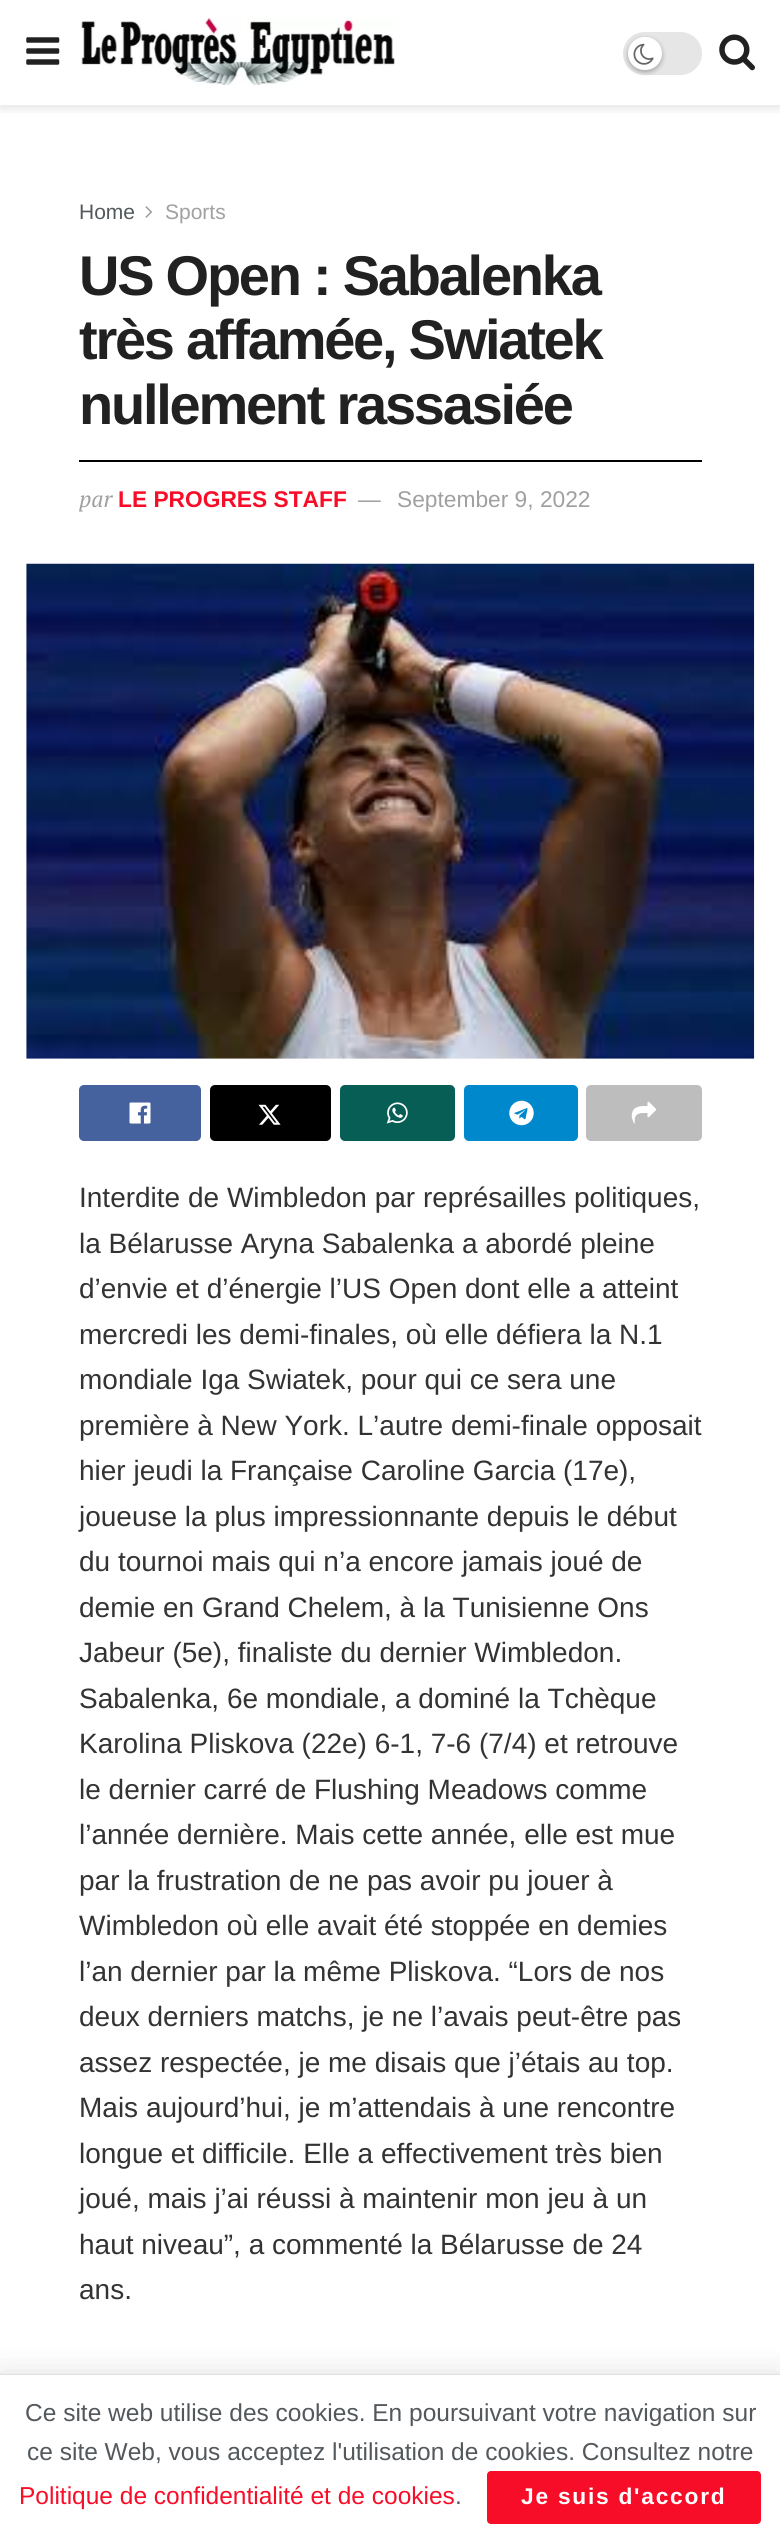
import math
import cairo


def write_spaced(ctx, x, y, s, letter, word):
	ctx.move_to(x, y)
	for ch in s:
		ctx.show_text(ch)
		ctx.rel_move_to(letter + word * (ch == ' '), 0)

def round_path(ctx, x, y, w, h, r):
	ctx.new_sub_path()
	for i, (u, v) in enumerate([(x + w - r, y + h - r), (x + r, y + h - r), (x + r, y + r), (x + w - r, y + r)]):
		ctx.arc(u, v, r, i * math.pi / 2, (i + 1) * math.pi / 2)
	ctx.close_path()

def blur_box(ctx, x, y, w, h, r, blur, alpha):
	ctx.push_group_with_content(cairo.CONTENT_ALPHA)
	ctx.set_operator(cairo.OPERATOR_SOURCE)
	for i in range(15, -16, -2):
		e = blur * i / 6
		if min(w, h) + 2 * e > 0:
			ctx.set_source_rgba(0, 0, 0, alpha * math.erfc((i - 1) / 8.5) / 2)
			round_path(ctx, x - e, y - e, w + 2 * e, h + 2 * e, max(0, min(r + e + blur * .6, min(w, h) / 2 + e)))
			ctx.fill()
	ctx.mask(ctx.pop_group())

def paste(ctx, path, x, y, w, h):
	ctx.save()
	ctx.set_source_surface(cairo.ImageSurface.create_from_png(path), x, y)
	ctx.rectangle(x, y, w, h)
	ctx.fill()
	ctx.restore()

def draw(ctx):
	ctx.set_source_rgb(1, 1, 1)
	ctx.paint()
	ctx.save()
	ctx.rectangle(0, 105, 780, 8)
	ctx.clip()
	ctx.set_source_rgb(0, 0, 0)
	blur_box(ctx, 0, 4, 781, 105, 0, 5, 0.1)
	ctx.restore()
	paste(ctx, 'media/1.png', 26, 37, 34, 28)
	paste(ctx, 'media/2.png', 80, 17, 315, 68)
	ctx.set_source_rgb(0.902, 0.902, 0.902)
	round_path(ctx, 623, 32, 79, 43, 21.5)
	ctx.fill()
	ctx.set_source_rgb(0, 0, 0)
	blur_box(ctx, 628, 39, 34, 33, 16.5, 2.5, 0.3)
	ctx.set_source_rgb(1, 1, 1)
	round_path(ctx, 628, 37, 34, 33, 16.5)
	ctx.fill()
	paste(ctx, 'media/3.png', 633, 43, 21, 22)
	paste(ctx, 'media/4.png', 719, 34, 36, 37)
	ctx.select_font_face('Liberation Sans')
	ctx.set_font_size(21)
	ctx.set_source_rgb(0.325, 0.345, 0.361)
	ctx.move_to(79, 219)
	ctx.show_text('Home')
	paste(ctx, 'media/5.png', 145, 206, 8, 12)
	ctx.set_source_rgb(0.627, 0.627, 0.627)
	ctx.move_to(165, 219)
	ctx.show_text('Sports')
	ctx.select_font_face('Liberation Sans', cairo.FONT_SLANT_NORMAL, cairo.FONT_WEIGHT_BOLD)
	ctx.set_font_size(56)
	ctx.set_source_rgb(0.129, 0.129, 0.129)
	for x, y, s in [
		(79, 295, 'US Open : Sabalenka'),
		(79, 359, 'très affamée, Swiatek'),
		(79, 424, 'nullement rassasiée'),
	]:
		write_spaced(ctx, x, y, s, -2.25, 0)
	ctx.set_source_rgb(0, 0, 0)
	ctx.rectangle(79, 460, 623, 2)
	ctx.fill()
	ctx.select_font_face('PT Serif', cairo.FONT_SLANT_ITALIC)
	ctx.set_font_size(22.75)
	ctx.set_source_rgb(0.627, 0.627, 0.627)
	ctx.move_to(79, 507)
	ctx.show_text('par')
	ctx.select_font_face('Liberation Sans', cairo.FONT_SLANT_NORMAL, cairo.FONT_WEIGHT_BOLD)
	ctx.set_source_rgb(0.969, 0.051, 0.157)
	ctx.move_to(118, 507)
	ctx.show_text('LE PROGRES STAFF')
	ctx.select_font_face('Liberation Sans')
	ctx.set_source_rgb(0.627, 0.627, 0.627)
	ctx.move_to(358, 507)
	ctx.show_text('—')
	ctx.move_to(397, 507)
	ctx.show_text('September 9, 2022')
	ctx.set_source_rgb(0.969, 0.969, 0.969)
	ctx.rectangle(26, 564, 728, 495)
	ctx.fill()
	paste(ctx, 'media/6.png', 26, 563, 729, 496)
	ctx.set_source_rgb(0.271, 0.384, 0.624)
	round_path(ctx, 79, 1085, 122, 56, 5)
	ctx.fill()
	paste(ctx, 'media/7.png', 129, 1102, 22, 22)
	ctx.set_source_rgb(0, 0, 0)
	round_path(ctx, 210, 1085, 121, 56, 5)
	ctx.fill()
	paste(ctx, 'media/8.png', 258, 1104, 23, 21)
	ctx.set_source_rgb(0.027, 0.369, 0.329)
	round_path(ctx, 340, 1085, 115, 56, 5)
	ctx.fill()
	paste(ctx, 'media/9.png', 386, 1102, 22, 22)
	ctx.set_source_rgb(0, 0.533, 0.8)
	round_path(ctx, 464, 1085, 114, 56, 5)
	ctx.fill()
	paste(ctx, 'media/10.png', 509, 1100, 25, 26)
	ctx.set_source_rgb(0.741, 0.741, 0.741)
	round_path(ctx, 586, 1085, 116, 56, 5)
	ctx.fill()
	paste(ctx, 'media/11.png', 631, 1101, 26, 23)
	ctx.set_font_size(28)
	ctx.set_source_rgb(0.2, 0.2, 0.2)
	for x, y, s in [
		(79, 1207, 'Interdite de Wimbledon par représailles politiques,'),
		(79, 1253, 'la Bélarusse Aryna Sabalenka a abordé pleine'),
		(79, 1298, 'd’envie et d’énergie l’US Open dont elle a atteint'),
		(79, 1344, 'mercredi les demi-finales, où elle défiera la N.1'),
		(79, 1389, 'mondiale Iga Swiatek, pour qui ce sera une'),
		(79, 1435, 'première à New York. L’autre demi-finale opposait'),
		(79, 1480, 'hier jeudi la Française Caroline Garcia (17e),'),
		(79, 1526, 'joueuse la plus impressionnante depuis le début'),
		(79, 1571, 'du tournoi mais qui n’a encore jamais joué de'),
		(79, 1617, 'demie en Grand Chelem, à la Tunisienne Ons'),
		(79, 1662, 'Jabeur (5e), finaliste du dernier Wimbledon.'),
		(79, 1708, 'Sabalenka, 6e mondiale, a dominé la Tchèque'),
		(79, 1753, 'Karolina Pliskova (22e) 6-1, 7-6 (7/4) et retrouve'),
		(79, 1799, 'le dernier carré de Flushing Meadows comme'),
		(79, 1844, 'l’année dernière. Mais cette année, elle est mue'),
		(79, 1890, 'par la frustration de ne pas avoir pu jouer à'),
		(79, 1935, 'Wimbledon où elle avait été stoppée en demies'),
		(79, 1981, 'l’an dernier par la même Pliskova. “Lors de nos'),
		(79, 2026, 'deux derniers matchs, je ne l’avais peut-être pas'),
		(79, 2072, 'assez respectée, je me disais que j’étais au top.'),
		(79, 2117, 'Mais aujourd’hui, je m’attendais à une rencontre'),
		(79, 2163, 'longue et difficile. Elle a effectivement très bien'),
		(79, 2208, 'joué, mais j’ai réussi à maintenir mon jeu à un'),
		(79, 2254, 'haut niveau”, a commenté la Bélarusse de 24'),
		(79, 2299, 'ans.'),
	]:
		ctx.move_to(x, y)
		ctx.show_text(s)
	ctx.set_source_rgb(0, 0, 0)
	blur_box(ctx, 0, 2378, 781, 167, 0, 17.5, 0.15)
	blur_box(ctx, 0, 2375, 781, 166, 0, 1, 0.2)
	ctx.set_source_rgb(1, 1, 1)
	ctx.rectangle(0, 2375, 780, 166)
	ctx.fill()
	ctx.set_font_size(24.5)
	ctx.set_source_rgb(0.325, 0.345, 0.361)
	ctx.move_to(25, 2421)
	ctx.show_text('Ce site web utilise des cookies. En poursuivant votre navigation sur')
	ctx.move_to(27, 2460)
	ctx.show_text('ce site Web, vous acceptez l\'utilisation de cookies. Consultez notre')
	ctx.set_source_rgb(0.969, 0.051, 0.157)
	ctx.move_to(19, 2504)
	ctx.show_text('Politique de confidentialité et de cookies')
	ctx.set_source_rgb(0.325, 0.345, 0.361)
	ctx.move_to(455, 2504)
	ctx.show_text('.')
	ctx.set_source_rgb(0.969, 0.051, 0.157)
	round_path(ctx, 487, 2471, 274, 53, 4)
	ctx.fill()
	ctx.select_font_face('Liberation Sans', cairo.FONT_SLANT_NORMAL, cairo.FONT_WEIGHT_BOLD)
	ctx.set_font_size(22.75)
	ctx.set_source_rgb(1, 1, 1)
	write_spaced(ctx, 521, 2504, 'Je suis d\'accord', 1.75, 0)


surface = cairo.ImageSurface(cairo.FORMAT_RGB24, 780, 2541)
ctx = cairo.Context(surface)
options = cairo.FontOptions()
options.set_hint_metrics(cairo.HINT_METRICS_OFF)
options.set_hint_style(cairo.HINT_STYLE_NONE)
ctx.set_font_options(options)
ctx.set_miter_limit(4)
draw(ctx)
surface.write_to_png('image.png')
